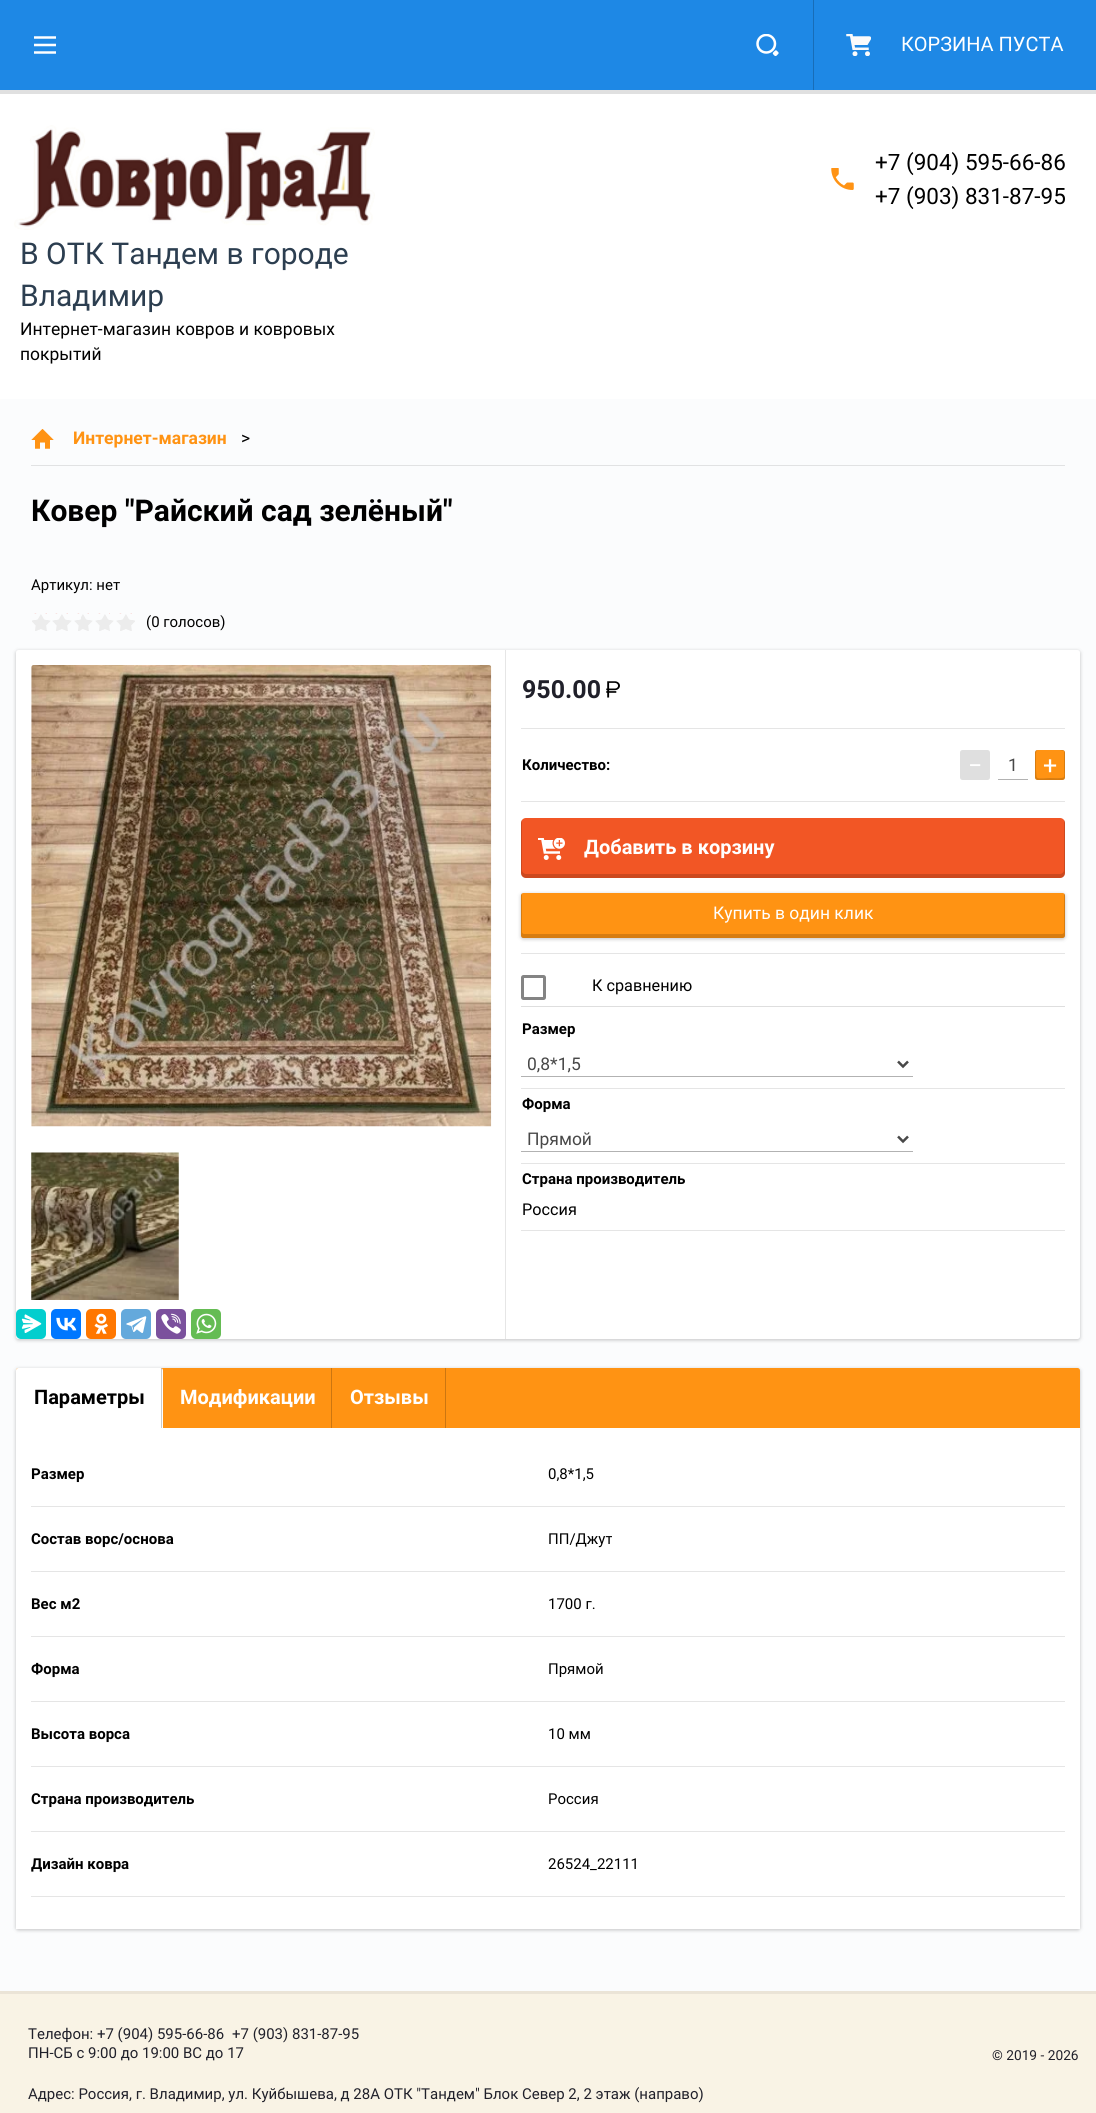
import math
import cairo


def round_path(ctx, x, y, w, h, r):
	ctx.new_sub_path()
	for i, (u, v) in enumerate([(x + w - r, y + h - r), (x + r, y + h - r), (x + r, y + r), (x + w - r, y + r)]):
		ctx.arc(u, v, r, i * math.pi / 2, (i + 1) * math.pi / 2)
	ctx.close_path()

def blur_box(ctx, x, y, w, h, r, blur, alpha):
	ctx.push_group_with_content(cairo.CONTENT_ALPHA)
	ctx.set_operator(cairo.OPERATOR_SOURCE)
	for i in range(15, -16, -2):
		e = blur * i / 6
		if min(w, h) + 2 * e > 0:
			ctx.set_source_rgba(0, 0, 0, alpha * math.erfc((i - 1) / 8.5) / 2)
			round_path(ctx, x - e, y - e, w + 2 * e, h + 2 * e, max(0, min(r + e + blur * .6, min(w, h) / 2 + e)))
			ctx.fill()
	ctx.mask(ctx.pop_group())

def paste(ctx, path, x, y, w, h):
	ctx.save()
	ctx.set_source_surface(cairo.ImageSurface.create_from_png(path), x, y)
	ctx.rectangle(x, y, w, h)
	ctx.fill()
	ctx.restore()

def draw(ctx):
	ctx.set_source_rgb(0.996, 0.988, 0.973)
	ctx.paint()
	ctx.set_source_rgb(1, 1, 1)
	ctx.rectangle(0, 94, 1096, 305)
	ctx.fill()
	ctx.set_source_rgb(0.878, 0.878, 0.878)
	ctx.rectangle(0, 90, 1096, 4)
	ctx.fill()
	ctx.set_source_rgb(0.118, 0.533, 0.898)
	ctx.rectangle(0, 0, 1096, 90)
	ctx.fill()
	paste(ctx, 'media/1.png', 34, 36, 22, 18)
	paste(ctx, 'media/2.png', 756, 34, 23, 22)
	ctx.set_source_rgb(0.094, 0.427, 0.718)
	ctx.rectangle(813, 0, 1, 90)
	ctx.fill()
	paste(ctx, 'media/3.png', 846, 34, 25, 22)
	ctx.select_font_face('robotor')
	ctx.set_font_size(20)
	ctx.set_source_rgb(1, 1, 1)
	ctx.move_to(901, 51)
	ctx.show_text('КОРЗИНА ПУСТА')
	ctx.set_font_size(22.5)
	ctx.set_source_rgb(0, 0, 0)
	ctx.move_to(875, 170)
	ctx.show_text('+7 (904) 595-66-86')
	paste(ctx, 'media/4.png', 831, 168, 23, 22)
	ctx.move_to(875, 204)
	ctx.show_text('+7 (903) 831-87-95')
	paste(ctx, 'media/5.png', 14, 125, 361, 105)
	ctx.set_font_size(30)
	ctx.set_source_rgb(0.173, 0.243, 0.314)
	ctx.move_to(20, 264)
	ctx.show_text('В ОТК Тандем в городе')
	ctx.move_to(20, 306)
	ctx.show_text('Владимир')
	ctx.set_font_size(17.5)
	ctx.set_source_rgb(0, 0, 0)
	ctx.move_to(20, 335)
	ctx.show_text('Интернет-магазин ковров и ковровых')
	ctx.move_to(20, 360)
	ctx.show_text('покрытий')
	ctx.set_source_rgb(0.984, 0.988, 0.992)
	round_path(ctx, 0, 399, 1096, 1592, 2.5)
	ctx.fill()
	ctx.set_source_rgb(0.882, 0.886, 0.89)
	ctx.rectangle(31, 465, 1034, 1)
	ctx.fill()
	paste(ctx, 'media/6.png', 31, 429, 23, 20)
	ctx.select_font_face('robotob', cairo.FONT_SLANT_NORMAL, cairo.FONT_WEIGHT_BOLD)
	ctx.set_source_rgb(1, 0.576, 0.078)
	ctx.move_to(73, 444)
	ctx.show_text('Интернет-магазин')
	ctx.select_font_face('robotor')
	ctx.set_source_rgb(0, 0, 0)
	ctx.move_to(241, 444)
	ctx.show_text('>')
	ctx.select_font_face('robotob', cairo.FONT_SLANT_NORMAL, cairo.FONT_WEIGHT_BOLD)
	ctx.set_font_size(30)
	ctx.move_to(31, 521)
	ctx.show_text('Ковер "Райский сад зелёный"')
	ctx.select_font_face('robotor')
	ctx.set_font_size(15)
	ctx.move_to(31, 590)
	ctx.show_text('Артикул: нет')
	paste(ctx, 'media/7.png', 32, 613, 103, 18)
	ctx.move_to(146, 627)
	ctx.show_text('(0 голосов)')
	ctx.set_source_rgb(0, 0, 0)
	blur_box(ctx, 16, 651, 1064, 689, 2.5, 2, 0.24)
	ctx.set_source_rgb(1, 1, 1)
	round_path(ctx, 16, 650, 1064, 689, 2.5)
	ctx.fill()
	paste(ctx, 'media/8.png', 31, 665, 461, 462)
	paste(ctx, 'media/9.png', 31, 1152, 148, 148)
	ctx.set_source_rgb(0.012, 0.808, 0.808)
	round_path(ctx, 16, 1309, 30, 30, 5)
	ctx.fill()
	paste(ctx, 'media/10.png', 21, 1314, 21, 19)
	ctx.set_source_rgb(0, 0.467, 1)
	round_path(ctx, 51, 1309, 30, 30, 5)
	ctx.fill()
	paste(ctx, 'media/11.png', 56, 1317, 21, 14)
	ctx.set_source_rgb(1, 0.467, 0)
	round_path(ctx, 86, 1309, 30, 30, 5)
	ctx.fill()
	paste(ctx, 'media/12.png', 94, 1313, 14, 21)
	ctx.set_source_rgb(0.392, 0.663, 0.863)
	round_path(ctx, 121, 1309, 30, 30, 5)
	ctx.fill()
	paste(ctx, 'media/13.png', 126, 1316, 21, 17)
	ctx.set_source_rgb(0.482, 0.318, 0.616)
	round_path(ctx, 156, 1309, 30, 30, 5)
	ctx.fill()
	paste(ctx, 'media/14.png', 161, 1313, 20, 21)
	ctx.set_source_rgb(0.396, 0.737, 0.329)
	round_path(ctx, 191, 1309, 30, 30, 5)
	ctx.fill()
	paste(ctx, 'media/15.png', 196, 1313, 21, 21)
	ctx.set_source_rgb(0.902, 0.902, 0.902)
	ctx.new_path()
	ctx.move_to(505, 650)
	ctx.line_to(505, 1339)
	ctx.line_to(1079, 1339)
	ctx.line_to(506, 1339)
	ctx.line_to(506, 650)
	ctx.close_path()
	ctx.fill()
	ctx.select_font_face('robotob', cairo.FONT_SLANT_NORMAL, cairo.FONT_WEIGHT_BOLD)
	ctx.set_font_size(25)
	ctx.set_source_rgb(0.125, 0.125, 0.165)
	ctx.move_to(522, 698)
	ctx.show_text('950.00')
	paste(ctx, 'media/16.png', 606, 681, 14, 17)
	ctx.set_source_rgb(0.898, 0.898, 0.898)
	ctx.rectangle(521, 728, 544, 1)
	ctx.fill()
	ctx.rectangle(521, 801, 544, 1)
	ctx.fill()
	ctx.set_font_size(15)
	ctx.set_source_rgb(0, 0, 0)
	ctx.move_to(522, 770)
	ctx.show_text('Количество:')
	ctx.set_source_rgb(0.875, 0.875, 0.875)
	round_path(ctx, 960, 750, 30, 30, 2.5)
	ctx.fill()
	ctx.select_font_face('robotor')
	ctx.set_font_size(25)
	ctx.set_source_rgb(1, 1, 1)
	ctx.move_to(968, 774)
	ctx.show_text('−')
	ctx.set_source_rgb(0.698, 0.698, 0.698)
	ctx.rectangle(998, 779, 30, 1)
	ctx.fill()
	ctx.set_font_size(17.5)
	ctx.set_source_rgb(0.282, 0.282, 0.282)
	ctx.move_to(1008, 771)
	ctx.show_text('1')
	ctx.set_source_rgb(1, 0.576, 0.078)
	round_path(ctx, 1035, 750, 30, 30, 2.5)
	ctx.fill()
	ctx.set_source_rgba(0, 0, 0, 0.16)
	ctx.new_path()
	ctx.move_to(1037.5, 750)
	ctx.curve_to(1036, 750, 1035, 751, 1035, 752.5)
	ctx.line_to(1035, 777.5)
	ctx.curve_to(1035, 779, 1036, 780, 1037.5, 780)
	ctx.line_to(1062.5, 780)
	ctx.curve_to(1064, 780, 1065, 779, 1065, 777.5)
	ctx.line_to(1065, 752.5)
	ctx.curve_to(1065, 751, 1064, 750, 1062.5, 750)
	ctx.line_to(1060, 750)
	ctx.line_to(1064, 751)
	ctx.line_to(1064, 769.5)
	ctx.curve_to(1064, 771.5, 1064.5, 774.5, 1064, 777)
	ctx.curve_to(1062.5, 779, 1052, 778, 1050, 778)
	ctx.curve_to(1047.5, 778, 1040, 779, 1037.5, 778)
	ctx.curve_to(1037, 777.5, 1036.5, 777, 1036.5, 776.5)
	ctx.line_to(1036, 770)
	ctx.line_to(1036, 759.5)
	ctx.curve_to(1036, 757.5, 1035, 750, 1038, 750)
	ctx.close_path()
	ctx.fill()
	ctx.set_font_size(25)
	ctx.set_source_rgb(1, 1, 1)
	ctx.move_to(1043, 774)
	ctx.show_text('+')
	ctx.set_source_rgb(0.949, 0.337, 0.145)
	round_path(ctx, 521, 818, 544, 60, 5)
	ctx.fill()
	ctx.set_source_rgba(0, 0, 0, 0.16)
	ctx.new_path()
	ctx.move_to(522, 820)
	ctx.curve_to(521, 821, 521, 822, 521, 823)
	ctx.line_to(521, 873)
	ctx.curve_to(521, 876, 523, 878, 526, 878)
	ctx.line_to(1060, 878)
	ctx.curve_to(1063, 878, 1065, 876, 1065, 873)
	ctx.line_to(1065, 823)
	ctx.curve_to(1065, 822, 1065, 821, 1064, 820)
	ctx.line_to(1064, 870)
	ctx.curve_to(1064, 872, 1062, 874, 1060, 874)
	ctx.line_to(526, 874)
	ctx.curve_to(524, 874, 522, 872, 522, 870)
	ctx.close_path()
	ctx.fill()
	paste(ctx, 'media/17.png', 538, 838, 27, 22)
	ctx.select_font_face('robotob', cairo.FONT_SLANT_NORMAL, cairo.FONT_WEIGHT_BOLD)
	ctx.set_font_size(20)
	ctx.set_source_rgb(1, 1, 1)
	ctx.move_to(584, 854)
	ctx.show_text('Добавить в корзину')
	ctx.set_source_rgb(0, 0, 0)
	blur_box(ctx, 521, 894, 544, 45, 2.5, 2, 0.24)
	ctx.set_source_rgb(1, 0.576, 0.078)
	round_path(ctx, 521, 893, 544, 45, 2.5)
	ctx.fill()
	ctx.set_source_rgba(0, 0, 0, 0.16)
	ctx.new_path()
	ctx.move_to(522, 893)
	ctx.line_to(521, 895)
	ctx.line_to(521, 936)
	ctx.line_to(522, 938)
	ctx.line_to(524, 938)
	ctx.line_to(1063, 938)
	ctx.curve_to(1064, 938, 1065, 937, 1065, 936)
	ctx.line_to(1065, 895)
	ctx.line_to(1064, 893)
	ctx.line_to(1064, 932)
	ctx.curve_to(1064, 933, 1063, 934, 1062, 934)
	ctx.line_to(524, 934)
	ctx.curve_to(523, 934, 522, 933, 522, 932)
	ctx.close_path()
	ctx.fill()
	ctx.select_font_face('robotor')
	ctx.set_font_size(17.5)
	ctx.set_source_rgb(1, 1, 1)
	ctx.move_to(713, 919)
	ctx.show_text('Купить в один клик')
	ctx.set_source_rgb(0.898, 0.898, 0.898)
	ctx.rectangle(521, 953, 544, 1)
	ctx.fill()
	ctx.set_source_rgb(0.871, 0.871, 0.871)
	ctx.rectangle(521, 1006, 544, 1)
	ctx.fill()
	round_path(ctx, 522.5, 976.5, 22, 22, 1)
	ctx.set_source_rgb(0.518, 0.518, 0.518)
	ctx.set_line_width(3)
	ctx.stroke()
	ctx.set_font_size(16.25)
	ctx.set_source_rgb(0, 0, 0)
	ctx.move_to(592, 991)
	ctx.show_text('К сравнению')
	ctx.set_source_rgb(0.898, 0.898, 0.898)
	ctx.rectangle(521, 1088, 544, 1)
	ctx.fill()
	ctx.select_font_face('robotob', cairo.FONT_SLANT_NORMAL, cairo.FONT_WEIGHT_BOLD)
	ctx.set_font_size(15)
	ctx.set_source_rgb(0, 0, 0)
	ctx.move_to(522, 1034)
	ctx.show_text('Размер')
	ctx.set_source_rgb(0.698, 0.698, 0.698)
	ctx.rectangle(521, 1076, 392, 1)
	ctx.fill()
	ctx.new_path()
	ctx.move_to(898, 1061.5)
	ctx.line_to(903, 1066.5)
	ctx.line_to(908, 1061.5)
	ctx.set_source_rgb(0.282, 0.282, 0.282)
	ctx.set_line_width(2.5)
	ctx.stroke()
	ctx.select_font_face('robotor')
	ctx.set_font_size(17.5)
	ctx.move_to(527, 1070)
	ctx.show_text('0,8*1,5')
	ctx.set_source_rgb(0.898, 0.898, 0.898)
	ctx.rectangle(521, 1163, 544, 1)
	ctx.fill()
	ctx.select_font_face('robotob', cairo.FONT_SLANT_NORMAL, cairo.FONT_WEIGHT_BOLD)
	ctx.set_font_size(15)
	ctx.set_source_rgb(0, 0, 0)
	ctx.move_to(522, 1109)
	ctx.show_text('Форма')
	ctx.set_source_rgb(0.698, 0.698, 0.698)
	ctx.rectangle(521, 1151, 392, 1)
	ctx.fill()
	ctx.new_path()
	ctx.move_to(898, 1136.5)
	ctx.line_to(903, 1141.5)
	ctx.line_to(908, 1136.5)
	ctx.set_source_rgb(0.282, 0.282, 0.282)
	ctx.stroke()
	ctx.select_font_face('robotor')
	ctx.set_font_size(17.5)
	ctx.move_to(527, 1145)
	ctx.show_text('Прямой')
	ctx.set_source_rgb(0.898, 0.898, 0.898)
	ctx.rectangle(521, 1230, 544, 1)
	ctx.fill()
	ctx.select_font_face('robotob', cairo.FONT_SLANT_NORMAL, cairo.FONT_WEIGHT_BOLD)
	ctx.set_font_size(15)
	ctx.set_source_rgb(0, 0, 0)
	ctx.move_to(522, 1184)
	ctx.show_text('Страна производитель')
	ctx.select_font_face('robotor')
	ctx.set_font_size(16.25)
	ctx.move_to(522, 1215)
	ctx.show_text('Россия')
	ctx.set_source_rgb(0, 0, 0)
	blur_box(ctx, 16, 1369, 1064, 561, 2.5, 2, 0.24)
	ctx.set_source_rgb(1, 0.576, 0.078)
	round_path(ctx, 16, 1368, 1064, 561, 2.5)
	ctx.fill()
	ctx.set_source_rgb(1, 1, 1)
	ctx.new_path()
	ctx.move_to(18.5, 1368)
	ctx.line_to(160.5, 1368)
	ctx.curve_to(162, 1368, 163, 1369, 163, 1370.5)
	ctx.line_to(163, 1428)
	ctx.line_to(16, 1428)
	ctx.line_to(16, 1370.5)
	ctx.curve_to(16, 1369, 17, 1368, 18.5, 1368)
	ctx.close_path()
	ctx.fill()
	ctx.select_font_face('robotob', cairo.FONT_SLANT_NORMAL, cairo.FONT_WEIGHT_BOLD)
	ctx.set_font_size(20)
	ctx.set_source_rgb(0, 0, 0)
	ctx.move_to(34, 1404)
	ctx.show_text('Параметры')
	ctx.set_source_rgba(0, 0, 0, 0.2)
	ctx.rectangle(161, 1368, 1, 60)
	ctx.fill()
	ctx.set_source_rgb(1, 1, 1)
	ctx.move_to(180, 1404)
	ctx.show_text('Модификации')
	ctx.set_source_rgb(0.8, 0.463, 0.063)
	ctx.rectangle(331, 1368, 1, 60)
	ctx.fill()
	ctx.set_source_rgb(1, 1, 1)
	ctx.move_to(350, 1404)
	ctx.show_text('Отзывы')
	ctx.set_source_rgb(0.8, 0.463, 0.063)
	ctx.rectangle(445, 1368, 1, 60)
	ctx.fill()
	ctx.set_source_rgb(1, 1, 1)
	ctx.rectangle(16, 1428, 1064, 501)
	ctx.fill()
	ctx.set_source_rgb(0.898, 0.898, 0.898)
	ctx.rectangle(31, 1506, 1034, 1)
	ctx.fill()
	ctx.set_font_size(15)
	ctx.set_source_rgb(0, 0, 0)
	ctx.move_to(31, 1479)
	ctx.show_text('Размер')
	ctx.select_font_face('robotor')
	ctx.move_to(548, 1479)
	ctx.show_text('0,8*1,5')
	ctx.set_source_rgb(0.898, 0.898, 0.898)
	ctx.rectangle(31, 1571, 1034, 1)
	ctx.fill()
	ctx.select_font_face('robotob', cairo.FONT_SLANT_NORMAL, cairo.FONT_WEIGHT_BOLD)
	ctx.set_source_rgb(0, 0, 0)
	ctx.move_to(31, 1544)
	ctx.show_text('Состав ворс/основа')
	ctx.select_font_face('robotor')
	ctx.move_to(548, 1544)
	ctx.show_text('ПП/Джут')
	ctx.set_source_rgb(0.898, 0.898, 0.898)
	ctx.rectangle(31, 1636, 1034, 1)
	ctx.fill()
	ctx.select_font_face('robotob', cairo.FONT_SLANT_NORMAL, cairo.FONT_WEIGHT_BOLD)
	ctx.set_source_rgb(0, 0, 0)
	ctx.move_to(31, 1609)
	ctx.show_text('Вес м2')
	ctx.select_font_face('robotor')
	ctx.move_to(548, 1609)
	ctx.show_text('1700 г.')
	ctx.set_source_rgb(0.898, 0.898, 0.898)
	ctx.rectangle(31, 1701, 1034, 1)
	ctx.fill()
	ctx.select_font_face('robotob', cairo.FONT_SLANT_NORMAL, cairo.FONT_WEIGHT_BOLD)
	ctx.set_source_rgb(0, 0, 0)
	ctx.move_to(31, 1674)
	ctx.show_text('Форма')
	ctx.select_font_face('robotor')
	ctx.move_to(548, 1674)
	ctx.show_text('Прямой')
	ctx.set_source_rgb(0.898, 0.898, 0.898)
	ctx.rectangle(31, 1766, 1034, 1)
	ctx.fill()
	ctx.select_font_face('robotob', cairo.FONT_SLANT_NORMAL, cairo.FONT_WEIGHT_BOLD)
	ctx.set_source_rgb(0, 0, 0)
	ctx.move_to(31, 1739)
	ctx.show_text('Высота ворса')
	ctx.select_font_face('robotor')
	ctx.move_to(548, 1739)
	ctx.show_text('10 мм')
	ctx.set_source_rgb(0.898, 0.898, 0.898)
	ctx.rectangle(31, 1831, 1034, 1)
	ctx.fill()
	ctx.select_font_face('robotob', cairo.FONT_SLANT_NORMAL, cairo.FONT_WEIGHT_BOLD)
	ctx.set_source_rgb(0, 0, 0)
	ctx.move_to(31, 1804)
	ctx.show_text('Страна производитель')
	ctx.select_font_face('robotor')
	ctx.move_to(548, 1804)
	ctx.show_text('Россия')
	ctx.set_source_rgb(0.898, 0.898, 0.898)
	ctx.rectangle(31, 1896, 1034, 1)
	ctx.fill()
	ctx.select_font_face('robotob', cairo.FONT_SLANT_NORMAL, cairo.FONT_WEIGHT_BOLD)
	ctx.set_source_rgb(0, 0, 0)
	ctx.move_to(31, 1869)
	ctx.show_text('Дизайн ковра')
	ctx.select_font_face('robotor')
	ctx.move_to(548, 1869)
	ctx.show_text('26524_22111')
	ctx.set_source_rgb(0.976, 0.953, 0.898)
	ctx.rectangle(0, 1994, 1096, 119)
	ctx.fill()
	ctx.set_source_rgb(0.918, 0.894, 0.843)
	ctx.rectangle(0, 1991, 1096, 3)
	ctx.fill()
	ctx.set_source_rgb(0.125, 0.125, 0.165)
	for x, y, s in [
		(28, 2039, 'Телефон: +7 (904) 595-66-86'),
		(232, 2039, '+7 (903) 831-87-95'),
		(28, 2058, 'ПН-СБ с 9:00 до 19:00 ВС до 17'),
		(28, 2099, 'Адрес: Россия, г. Владимир, ул. Куйбышева, д 28А ОТК "Тандем" Блок Север 2, 2 этаж (направо)'),
	]:
		ctx.move_to(x, y)
		ctx.show_text(s)
	ctx.set_font_size(13.75)
	ctx.move_to(992, 2060)
	ctx.show_text('© 2019 - 2026')


surface = cairo.ImageSurface(cairo.FORMAT_RGB24, 1096, 2113)
ctx = cairo.Context(surface)
options = cairo.FontOptions()
options.set_hint_metrics(cairo.HINT_METRICS_OFF)
options.set_hint_style(cairo.HINT_STYLE_NONE)
ctx.set_font_options(options)
ctx.set_miter_limit(4)
draw(ctx)
surface.write_to_png('image.png')
